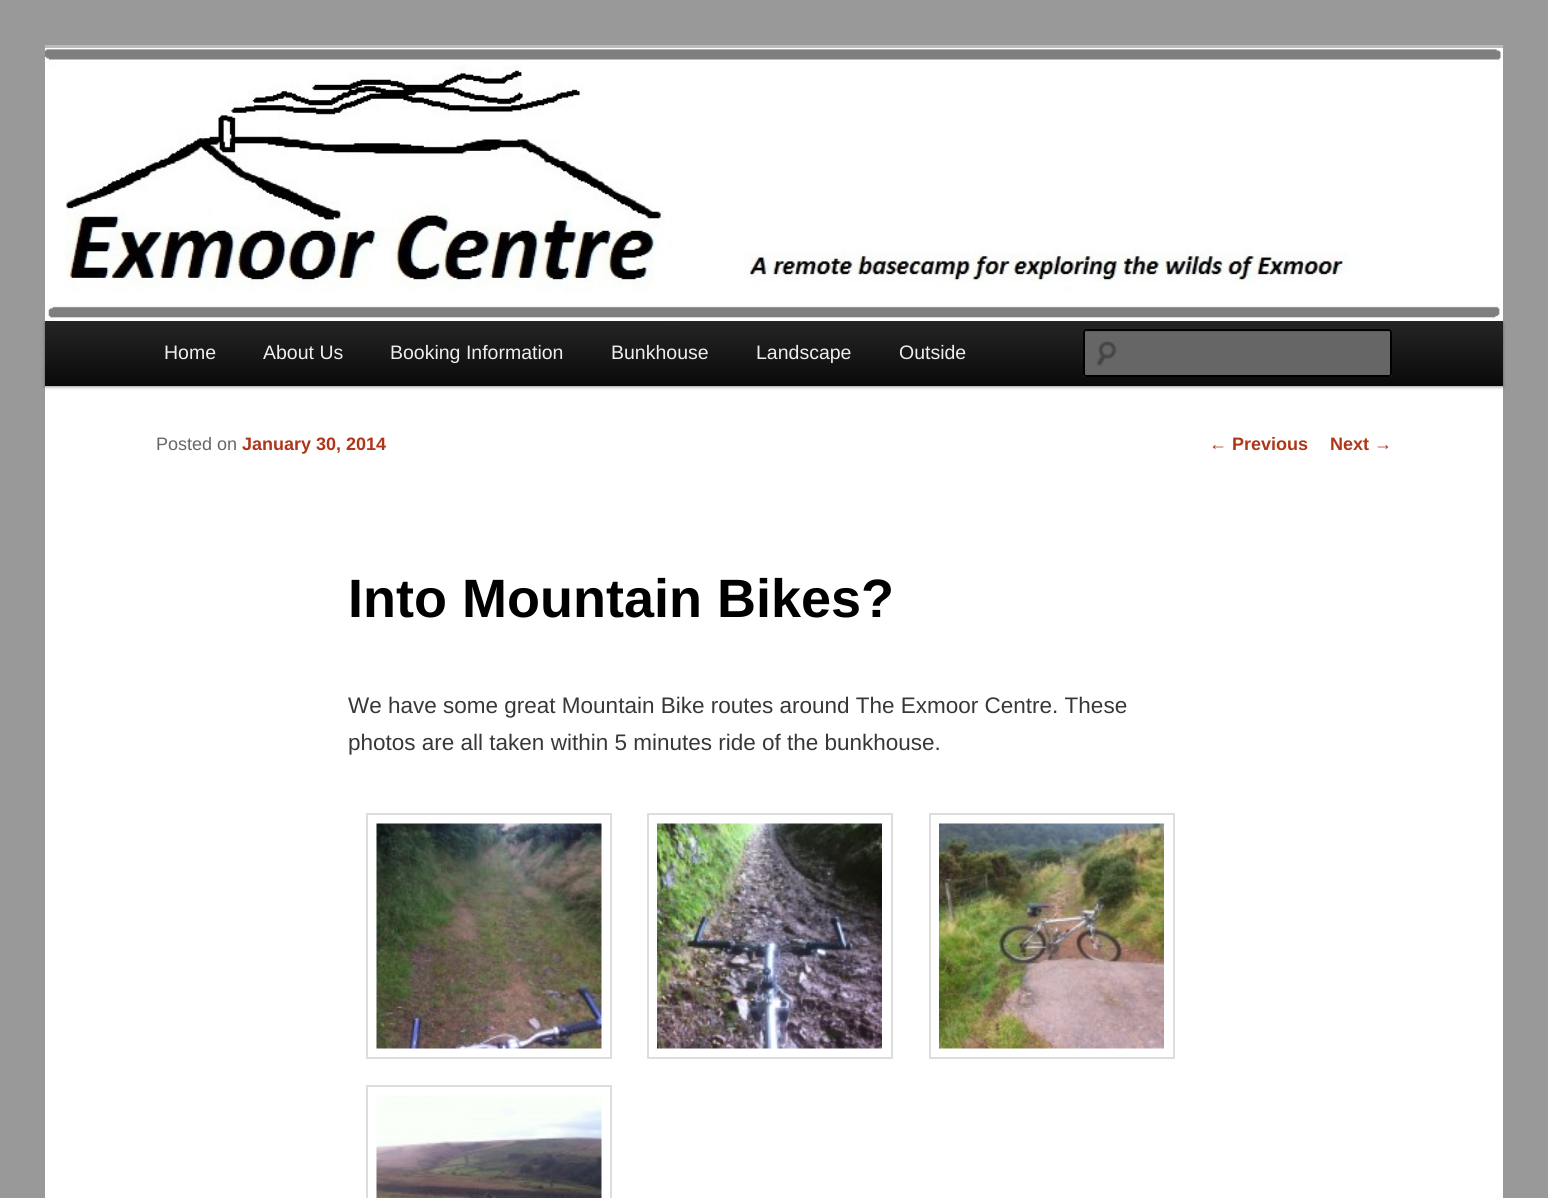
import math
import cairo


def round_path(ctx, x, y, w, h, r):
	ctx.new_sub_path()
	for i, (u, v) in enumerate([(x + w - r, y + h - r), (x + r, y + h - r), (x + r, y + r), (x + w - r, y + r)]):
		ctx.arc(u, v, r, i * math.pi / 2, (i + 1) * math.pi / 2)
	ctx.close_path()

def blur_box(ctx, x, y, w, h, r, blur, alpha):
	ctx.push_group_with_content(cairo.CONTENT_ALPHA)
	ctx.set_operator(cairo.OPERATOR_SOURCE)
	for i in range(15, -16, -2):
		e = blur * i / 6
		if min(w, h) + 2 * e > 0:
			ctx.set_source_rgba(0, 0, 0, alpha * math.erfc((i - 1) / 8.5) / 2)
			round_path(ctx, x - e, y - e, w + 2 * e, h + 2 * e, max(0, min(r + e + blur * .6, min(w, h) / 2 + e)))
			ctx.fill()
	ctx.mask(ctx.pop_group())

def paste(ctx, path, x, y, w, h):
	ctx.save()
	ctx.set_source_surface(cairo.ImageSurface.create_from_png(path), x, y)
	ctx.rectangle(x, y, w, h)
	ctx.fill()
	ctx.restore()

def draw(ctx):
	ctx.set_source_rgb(0.6, 0.6, 0.6)
	ctx.paint()
	ctx.set_source_rgb(1, 1, 1)
	ctx.rectangle(45, 48, 1458, 1150)
	ctx.fill()
	ctx.set_source_rgb(0.733, 0.733, 0.733)
	ctx.rectangle(45, 45, 1458, 3)
	ctx.fill()
	ctx.set_source_rgb(0, 0, 0)
	blur_box(ctx, 45, 323, 1458, 64, 0, 1.5, 0.4)
	paste(ctx, 'media/1.png', 45, 49, 1456, 272)
	gradient = cairo.LinearGradient(774, 321, 774, 386)
	gradient.add_color_stop_rgba(0, 0.145, 0.145, 0.145, 1)
	gradient.add_color_stop_rgba(1, 0.039, 0.039, 0.039, 1)
	ctx.set_source(gradient)
	ctx.rectangle(45, 321, 1458, 65)
	ctx.fill()
	ctx.select_font_face('Liberation Sans')
	ctx.set_font_size(19.5)
	ctx.set_source_rgb(0.933, 0.933, 0.933)
	for x, y, s in [
		(164, 359, 'Home'),
		(263, 359, 'About Us'),
		(390, 359, 'Booking Information'),
		(611, 359, 'Bunkhouse'),
		(756, 359, 'Landscape'),
		(899, 359, 'Outside'),
	]:
		ctx.move_to(x, y)
		ctx.show_text(s)
	ctx.set_source_rgb(0.4, 0.4, 0.4)
	round_path(ctx, 1083, 329, 309, 48, 3)
	ctx.fill()
	paste(ctx, 'media/2.png', 1096, 341, 21, 25)
	ctx.set_source_rgb(0.361, 0.361, 0.361)
	ctx.new_path()
	ctx.move_to(1086, 332)
	ctx.line_to(1389, 332)
	ctx.curve_to(1390, 332, 1390, 332, 1390, 333)
	ctx.line_to(1390, 375)
	ctx.curve_to(1391, 375, 1391, 374, 1391, 374)
	ctx.line_to(1391, 332)
	ctx.curve_to(1391, 331, 1390, 330, 1390, 330)
	ctx.line_to(1086, 330)
	ctx.curve_to(1086, 330, 1085, 331, 1085, 332)
	ctx.close_path()
	ctx.fill()
	round_path(ctx, 1084, 330, 307, 46, 2)
	ctx.set_source_rgb(0, 0, 0)
	ctx.stroke()
	ctx.set_font_size(18)
	ctx.set_source_rgb(0.4, 0.4, 0.4)
	ctx.move_to(156, 450)
	ctx.show_text('Posted on')
	ctx.select_font_face('Liberation Sans', cairo.FONT_SLANT_NORMAL, cairo.FONT_WEIGHT_BOLD)
	ctx.set_source_rgb(0.686, 0.212, 0.094)
	ctx.move_to(242, 450)
	ctx.show_text('January 30, 2014')
	ctx.set_font_size(54)
	ctx.set_source_rgb(0, 0, 0)
	ctx.move_to(348, 617)
	ctx.show_text('Into Mountain Bikes?')
	ctx.select_font_face('Liberation Sans')
	ctx.set_font_size(22.5)
	ctx.set_source_rgb(0.216, 0.216, 0.216)
	ctx.move_to(348, 713)
	ctx.show_text('We have some great Mountain Bike routes around The Exmoor Centre. These')
	ctx.move_to(348, 750)
	ctx.show_text('photos are all taken within 5 minutes ride of the bunkhouse.')
	ctx.rectangle(367, 814, 244, 244)
	ctx.set_source_rgb(0.867, 0.867, 0.867)
	ctx.stroke()
	paste(ctx, 'media/3.png', 376, 823, 226, 226)
	ctx.rectangle(648, 814, 244, 244)
	ctx.stroke()
	paste(ctx, 'media/4.png', 657, 823, 225, 226)
	ctx.rectangle(930, 814, 244, 244)
	ctx.stroke()
	paste(ctx, 'media/5.png', 939, 823, 225, 226)
	ctx.rectangle(367, 1086, 244, 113)
	ctx.stroke()
	paste(ctx, 'media/6.png', 376, 1095, 226, 103)
	ctx.set_font_size(18)
	ctx.set_source_rgb(0.686, 0.212, 0.094)
	ctx.move_to(1209, 450)
	ctx.show_text('←')
	ctx.select_font_face('Liberation Sans', cairo.FONT_SLANT_NORMAL, cairo.FONT_WEIGHT_BOLD)
	ctx.move_to(1232, 450)
	ctx.show_text('Previous')
	ctx.move_to(1330, 450)
	ctx.show_text('Next')
	ctx.select_font_face('Liberation Sans')
	ctx.move_to(1374, 450)
	ctx.show_text('→')


surface = cairo.ImageSurface(cairo.FORMAT_RGB24, 1548, 1198)
ctx = cairo.Context(surface)
options = cairo.FontOptions()
options.set_hint_metrics(cairo.HINT_METRICS_OFF)
options.set_hint_style(cairo.HINT_STYLE_NONE)
ctx.set_font_options(options)
ctx.set_miter_limit(4)
draw(ctx)
surface.write_to_png('image.png')
